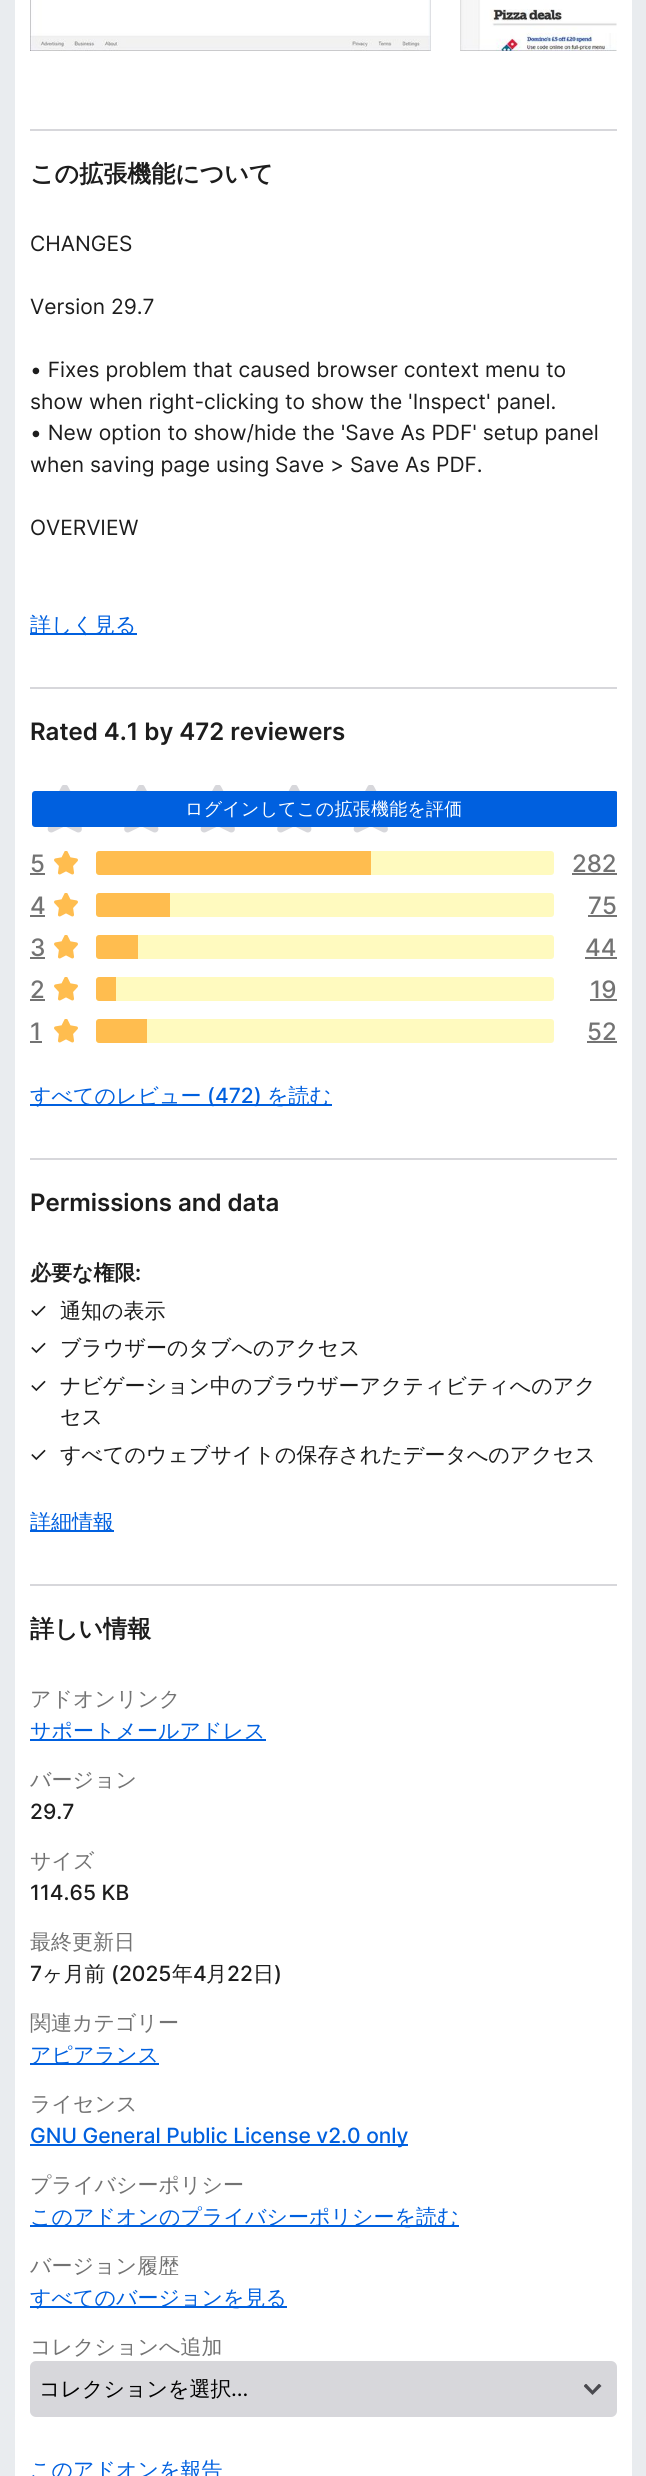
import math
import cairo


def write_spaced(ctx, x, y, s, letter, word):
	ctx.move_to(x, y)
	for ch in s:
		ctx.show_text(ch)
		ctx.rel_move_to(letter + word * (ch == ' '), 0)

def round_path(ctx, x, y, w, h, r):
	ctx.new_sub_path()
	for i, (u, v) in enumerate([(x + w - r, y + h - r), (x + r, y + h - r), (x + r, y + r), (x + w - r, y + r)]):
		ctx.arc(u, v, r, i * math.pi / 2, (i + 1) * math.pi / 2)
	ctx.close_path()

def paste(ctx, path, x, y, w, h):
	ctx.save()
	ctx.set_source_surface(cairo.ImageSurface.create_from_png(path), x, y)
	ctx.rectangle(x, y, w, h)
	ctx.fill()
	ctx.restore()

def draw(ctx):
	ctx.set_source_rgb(0.914, 0.925, 0.937)
	ctx.paint()
	ctx.set_source_rgb(1, 1, 1)
	ctx.rectangle(15, 0, 617, 2476)
	ctx.fill()
	paste(ctx, 'media/1.png', 30, 0, 401, 51)
	paste(ctx, 'media/2.png', 460, 0, 157, 51)
	ctx.set_source_rgb(0.843, 0.843, 0.859)
	ctx.rectangle(30, 129, 587, 2)
	ctx.fill()
	ctx.rectangle(30, 687, 587, 2)
	ctx.fill()
	ctx.select_font_face('WenQuanYi Zen Hei', cairo.FONT_SLANT_NORMAL, cairo.FONT_WEIGHT_BOLD)
	ctx.set_font_size(24)
	ctx.set_source_rgb(0.114, 0.114, 0.114)
	ctx.move_to(30, 182)
	ctx.show_text('この拡張機能について')
	ctx.select_font_face('Inter')
	ctx.set_font_size(21)
	for x, y, s in [
		(30, 251, 'CHANGES'),
		(30, 314, 'Version 29.7'),
		(30, 377, '• Fixes problem that caused browser context menu to'),
		(30, 409, 'show when right-clicking to show the \'Inspect\' panel.'),
		(30, 440, '• New option to show/hide the \'Save As PDF\' setup panel'),
		(30, 472, 'when saving page using Save > Save As PDF.'),
		(30, 535, 'OVERVIEW'),
	]:
		ctx.move_to(x, y)
		ctx.show_text(s)
	ctx.set_source_rgb(0, 0.376, 0.875)
	ctx.rectangle(30, 633, 107, 2)
	ctx.fill()
	ctx.select_font_face('WenQuanYi Zen Hei Medium')
	ctx.move_to(30, 632)
	ctx.show_text('詳しく見る')
	ctx.select_font_face('Inter SemiBold')
	ctx.set_font_size(24)
	ctx.set_source_rgb(0.114, 0.114, 0.114)
	ctx.move_to(30, 740)
	ctx.show_text('Rated 4.1 by 472 reviewers')
	paste(ctx, 'media/3.png', 47, 785, 35, 48)
	paste(ctx, 'media/4.png', 124, 785, 35, 48)
	paste(ctx, 'media/3.png', 200, 785, 35, 48)
	paste(ctx, 'media/4.png', 277, 785, 35, 48)
	paste(ctx, 'media/3.png', 353, 785, 35, 48)
	ctx.save()
	ctx.rectangle(30, 785, 587, 258)
	ctx.clip()
	ctx.set_source_rgb(0, 0.376, 0.875)
	round_path(ctx, 32, 791, 586, 36, 3)
	ctx.fill()
	ctx.restore()
	ctx.select_font_face('WenQuanYi Zen Hei Medium')
	ctx.set_font_size(18)
	ctx.set_source_rgb(1, 1, 1)
	write_spaced(ctx, 185, 815, 'ログインしてこの拡張機能を評価', 0.25, 0)
	ctx.select_font_face('Inter Medium')
	ctx.set_font_size(24)
	ctx.set_source_rgb(0.451, 0.451, 0.451)
	ctx.move_to(30, 872)
	ctx.show_text('5')
	ctx.rectangle(30, 873, 15, 2)
	ctx.fill()
	paste(ctx, 'media/5.png', 54, 851, 24, 24)
	ctx.set_source_rgb(1, 0.98, 0.749)
	round_path(ctx, 96, 851, 458, 24, 3)
	ctx.fill()
	ctx.set_source_rgb(1, 0.741, 0.31)
	ctx.new_path()
	ctx.move_to(99, 851)
	ctx.line_to(371, 851)
	ctx.line_to(371, 875)
	ctx.line_to(99, 875)
	ctx.curve_to(97.5, 875, 96, 873.5, 96, 872)
	ctx.line_to(96, 854)
	ctx.curve_to(96, 852.5, 97.5, 851, 99, 851)
	ctx.close_path()
	ctx.fill()
	ctx.set_source_rgb(0.451, 0.451, 0.451)
	ctx.move_to(572, 872)
	ctx.show_text('282')
	ctx.rectangle(572, 873, 45, 2)
	ctx.fill()
	ctx.move_to(30, 914)
	ctx.show_text('4')
	ctx.rectangle(30, 915, 15, 2)
	ctx.fill()
	paste(ctx, 'media/5.png', 54, 893, 24, 24)
	ctx.set_source_rgb(1, 0.98, 0.749)
	round_path(ctx, 96, 893, 458, 24, 3)
	ctx.fill()
	ctx.set_source_rgb(1, 0.741, 0.31)
	ctx.new_path()
	ctx.move_to(99, 893)
	ctx.line_to(170, 893)
	ctx.line_to(170, 917)
	ctx.line_to(99, 917)
	ctx.curve_to(97.5, 917, 96, 915.5, 96, 914)
	ctx.line_to(96, 896)
	ctx.curve_to(96, 894.5, 97.5, 893, 99, 893)
	ctx.close_path()
	ctx.fill()
	ctx.set_source_rgb(0.451, 0.451, 0.451)
	ctx.move_to(588, 914)
	ctx.show_text('75')
	ctx.rectangle(588, 915, 29, 2)
	ctx.fill()
	ctx.move_to(30, 956)
	ctx.show_text('3')
	ctx.rectangle(30, 957, 15, 2)
	ctx.fill()
	paste(ctx, 'media/5.png', 54, 935, 24, 24)
	ctx.set_source_rgb(1, 0.98, 0.749)
	round_path(ctx, 96, 935, 458, 24, 3)
	ctx.fill()
	ctx.set_source_rgb(1, 0.741, 0.31)
	ctx.new_path()
	ctx.move_to(99, 935)
	ctx.line_to(138, 935)
	ctx.line_to(138, 959)
	ctx.line_to(99, 959)
	ctx.curve_to(97.5, 959, 96, 957.5, 96, 956)
	ctx.line_to(96, 938)
	ctx.curve_to(96, 936.5, 97.5, 935, 99, 935)
	ctx.close_path()
	ctx.fill()
	ctx.set_source_rgb(0.451, 0.451, 0.451)
	ctx.move_to(585, 956)
	ctx.show_text('44')
	ctx.rectangle(585, 957, 32, 2)
	ctx.fill()
	ctx.move_to(30, 998)
	ctx.show_text('2')
	ctx.rectangle(30, 999, 15, 2)
	ctx.fill()
	paste(ctx, 'media/5.png', 54, 977, 24, 24)
	ctx.set_source_rgb(1, 0.98, 0.749)
	round_path(ctx, 96, 977, 458, 24, 3)
	ctx.fill()
	ctx.set_source_rgb(1, 0.741, 0.31)
	ctx.new_path()
	ctx.move_to(99, 977)
	ctx.line_to(116, 977)
	ctx.line_to(116, 1001)
	ctx.line_to(99, 1001)
	ctx.curve_to(97.5, 1001, 96, 999.5, 96, 998)
	ctx.line_to(96, 980)
	ctx.curve_to(96, 978.5, 97.5, 977, 99, 977)
	ctx.close_path()
	ctx.fill()
	ctx.set_source_rgb(0.451, 0.451, 0.451)
	ctx.move_to(590, 998)
	ctx.show_text('19')
	ctx.rectangle(590, 999, 27, 2)
	ctx.fill()
	ctx.move_to(30, 1040)
	ctx.show_text('1')
	ctx.rectangle(30, 1041, 12, 2)
	ctx.fill()
	paste(ctx, 'media/5.png', 54, 1019, 24, 24)
	ctx.set_source_rgb(1, 0.98, 0.749)
	round_path(ctx, 96, 1019, 458, 24, 3)
	ctx.fill()
	ctx.set_source_rgb(1, 0.741, 0.31)
	ctx.new_path()
	ctx.move_to(99, 1019)
	ctx.line_to(147, 1019)
	ctx.line_to(147, 1043)
	ctx.line_to(99, 1043)
	ctx.curve_to(97.5, 1043, 96, 1041.5, 96, 1040)
	ctx.line_to(96, 1022)
	ctx.curve_to(96, 1020.5, 97.5, 1019, 99, 1019)
	ctx.close_path()
	ctx.fill()
	ctx.set_source_rgb(0.451, 0.451, 0.451)
	ctx.move_to(587, 1040)
	ctx.show_text('52')
	ctx.rectangle(587, 1041, 30, 2)
	ctx.fill()
	ctx.set_source_rgb(0, 0.376, 0.875)
	ctx.rectangle(30, 1104, 302, 2)
	ctx.fill()
	ctx.select_font_face('WenQuanYi Zen Hei Medium')
	ctx.set_font_size(21)
	ctx.move_to(30, 1103)
	ctx.show_text('すべてのレビュー')
	ctx.select_font_face('Inter Medium')
	ctx.move_to(207, 1103)
	ctx.show_text('(472)')
	ctx.select_font_face('WenQuanYi Zen Hei Medium')
	ctx.move_to(267, 1103)
	ctx.show_text('を読む')
	ctx.set_source_rgb(0.843, 0.843, 0.859)
	ctx.rectangle(30, 1158, 587, 2)
	ctx.fill()
	ctx.select_font_face('Inter SemiBold')
	ctx.set_font_size(24)
	ctx.set_source_rgb(0.114, 0.114, 0.114)
	ctx.move_to(30, 1211)
	ctx.show_text('Permissions and data')
	ctx.select_font_face('WenQuanYi Zen Hei', cairo.FONT_SLANT_NORMAL, cairo.FONT_WEIGHT_BOLD)
	ctx.set_font_size(21)
	ctx.move_to(30, 1280)
	ctx.show_text('必要な権限')
	ctx.select_font_face('Inter SemiBold')
	ctx.move_to(135, 1280)
	ctx.show_text(':')
	ctx.select_font_face('Inter')
	ctx.move_to(29, 1318)
	ctx.show_text('✓')
	ctx.select_font_face('WenQuanYi Zen Hei Medium')
	ctx.move_to(60, 1318)
	ctx.show_text('通知の表示')
	ctx.select_font_face('Inter')
	ctx.move_to(29, 1355)
	ctx.show_text('✓')
	ctx.select_font_face('WenQuanYi Zen Hei Medium')
	ctx.move_to(60, 1355)
	ctx.show_text('ブラウザーのタブへのアクセス')
	ctx.select_font_face('Inter')
	ctx.move_to(29, 1393)
	ctx.show_text('✓')
	ctx.select_font_face('WenQuanYi Zen Hei Medium')
	ctx.move_to(60, 1393)
	ctx.show_text('ナビゲーション中のブラウザーアクティビティへのアク')
	ctx.move_to(60, 1424)
	ctx.show_text('セス')
	ctx.select_font_face('Inter')
	ctx.move_to(29, 1462)
	ctx.show_text('✓')
	ctx.select_font_face('WenQuanYi Zen Hei Medium')
	ctx.move_to(60, 1462)
	ctx.show_text('すべてのウェブサイトの保存されたデータへのアクセス')
	ctx.set_source_rgb(0, 0.376, 0.875)
	ctx.rectangle(30, 1530, 84, 2)
	ctx.fill()
	ctx.move_to(30, 1529)
	ctx.show_text('詳細情報')
	ctx.set_source_rgb(0.843, 0.843, 0.859)
	ctx.rectangle(30, 1584, 587, 2)
	ctx.fill()
	ctx.select_font_face('WenQuanYi Zen Hei', cairo.FONT_SLANT_NORMAL, cairo.FONT_WEIGHT_BOLD)
	ctx.set_font_size(24)
	ctx.set_source_rgb(0.114, 0.114, 0.114)
	ctx.move_to(30, 1637)
	ctx.show_text('詳しい情報')
	ctx.select_font_face('WenQuanYi Zen Hei Medium')
	ctx.set_font_size(21)
	ctx.set_source_rgb(0.451, 0.451, 0.451)
	ctx.move_to(30, 1706)
	ctx.show_text('アドオンリンク')
	ctx.set_source_rgb(0, 0.376, 0.875)
	ctx.rectangle(30, 1739, 236, 2)
	ctx.fill()
	ctx.move_to(30, 1738)
	ctx.show_text('サポートメールアドレス')
	ctx.set_source_rgb(0.451, 0.451, 0.451)
	ctx.move_to(30, 1787)
	ctx.show_text('バージョン')
	ctx.select_font_face('Inter Medium')
	ctx.set_source_rgb(0.114, 0.114, 0.114)
	ctx.move_to(30, 1819)
	ctx.show_text('29.7')
	ctx.select_font_face('WenQuanYi Zen Hei Medium')
	ctx.set_source_rgb(0.451, 0.451, 0.451)
	ctx.move_to(30, 1868)
	ctx.show_text('サイズ')
	ctx.select_font_face('Inter Medium')
	ctx.set_source_rgb(0.114, 0.114, 0.114)
	ctx.move_to(30, 1900)
	ctx.show_text('114.65 KB')
	ctx.select_font_face('WenQuanYi Zen Hei Medium')
	ctx.set_source_rgb(0.451, 0.451, 0.451)
	ctx.move_to(30, 1949)
	ctx.show_text('最終更新日')
	ctx.select_font_face('Inter Medium')
	ctx.set_source_rgb(0.114, 0.114, 0.114)
	ctx.move_to(30, 1981)
	ctx.show_text('7')
	ctx.select_font_face('WenQuanYi Zen Hei Medium')
	ctx.move_to(42, 1981)
	ctx.show_text('ヶ月前')
	ctx.select_font_face('Inter Medium')
	ctx.move_to(111, 1981)
	ctx.show_text('(2025')
	ctx.select_font_face('WenQuanYi Zen Hei Medium')
	ctx.move_to(172, 1981)
	ctx.show_text('年')
	ctx.select_font_face('Inter Medium')
	ctx.move_to(193, 1981)
	ctx.show_text('4')
	ctx.select_font_face('WenQuanYi Zen Hei Medium')
	ctx.move_to(206, 1981)
	ctx.show_text('月')
	ctx.select_font_face('Inter Medium')
	ctx.move_to(227, 1981)
	ctx.show_text('22')
	ctx.select_font_face('WenQuanYi Zen Hei Medium')
	ctx.move_to(253, 1981)
	ctx.show_text('日')
	ctx.select_font_face('Inter Medium')
	ctx.move_to(274, 1981)
	ctx.show_text(')')
	ctx.select_font_face('WenQuanYi Zen Hei Medium')
	ctx.set_source_rgb(0.451, 0.451, 0.451)
	ctx.move_to(30, 2030)
	ctx.show_text('関連カテゴリー')
	ctx.set_source_rgb(0, 0.376, 0.875)
	ctx.rectangle(30, 2063, 129, 2)
	ctx.fill()
	ctx.move_to(30, 2062)
	ctx.show_text('アピアランス')
	ctx.set_source_rgb(0.451, 0.451, 0.451)
	ctx.move_to(30, 2111)
	ctx.show_text('ライセンス')
	ctx.set_source_rgb(0, 0.376, 0.875)
	ctx.rectangle(30, 2144, 378, 2)
	ctx.fill()
	ctx.select_font_face('Inter Medium')
	ctx.move_to(30, 2143)
	ctx.show_text('GNU General Public License v2.0 only')
	ctx.select_font_face('WenQuanYi Zen Hei Medium')
	ctx.set_source_rgb(0.451, 0.451, 0.451)
	ctx.move_to(30, 2192)
	ctx.show_text('プライバシーポリシー')
	ctx.set_source_rgb(0, 0.376, 0.875)
	ctx.rectangle(30, 2225, 429, 2)
	ctx.fill()
	ctx.move_to(30, 2224)
	ctx.show_text('このアドオンのプライバシーポリシーを読む')
	ctx.set_source_rgb(0.451, 0.451, 0.451)
	ctx.move_to(30, 2273)
	ctx.show_text('バージョン履歴')
	ctx.set_source_rgb(0, 0.376, 0.875)
	ctx.rectangle(30, 2306, 257, 2)
	ctx.fill()
	ctx.move_to(30, 2305)
	ctx.show_text('すべてのバージョンを見る')
	ctx.set_source_rgb(0.451, 0.451, 0.451)
	ctx.move_to(30, 2354)
	ctx.show_text('コレクションへ追加')
	ctx.set_source_rgb(0.843, 0.843, 0.859)
	round_path(ctx, 30, 2361, 587, 56, 6)
	ctx.fill()
	ctx.save()
	ctx.rectangle(584, 2384, 18, 12)
	ctx.clip()
	ctx.set_source_rgb(0.29, 0.29, 0.31)
	ctx.set_fill_rule(cairo.FILL_RULE_EVEN_ODD)
	ctx.new_path()
	ctx.move_to(599, 2383.5)
	ctx.line_to(592.5, 2390.5)
	ctx.line_to(586, 2383.5)
	ctx.line_to(583.5, 2386)
	ctx.line_to(592.5, 2395)
	ctx.line_to(601.5, 2386)
	ctx.close_path()
	ctx.fill()
	ctx.restore()
	ctx.set_source_rgb(0, 0, 0)
	ctx.move_to(39, 2396)
	ctx.show_text('コレクションを選択')
	ctx.select_font_face('Inter')
	ctx.move_to(231, 2396)
	ctx.show_text('...')
	ctx.select_font_face('WenQuanYi Zen Hei Medium')
	ctx.set_source_rgb(0, 0.376, 0.875)
	ctx.move_to(30, 2477)
	ctx.show_text('このアドオンを報告')


surface = cairo.ImageSurface(cairo.FORMAT_RGB24, 646, 2476)
ctx = cairo.Context(surface)
options = cairo.FontOptions()
options.set_hint_metrics(cairo.HINT_METRICS_OFF)
options.set_hint_style(cairo.HINT_STYLE_NONE)
ctx.set_font_options(options)
ctx.set_miter_limit(4)
draw(ctx)
surface.write_to_png('image.png')
